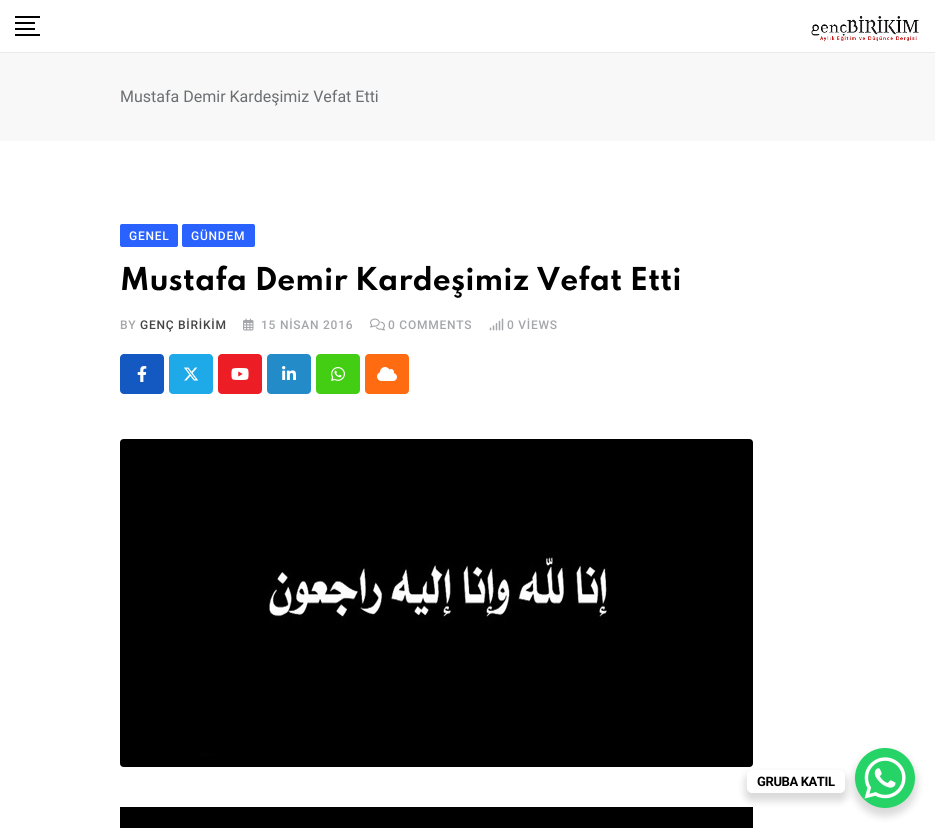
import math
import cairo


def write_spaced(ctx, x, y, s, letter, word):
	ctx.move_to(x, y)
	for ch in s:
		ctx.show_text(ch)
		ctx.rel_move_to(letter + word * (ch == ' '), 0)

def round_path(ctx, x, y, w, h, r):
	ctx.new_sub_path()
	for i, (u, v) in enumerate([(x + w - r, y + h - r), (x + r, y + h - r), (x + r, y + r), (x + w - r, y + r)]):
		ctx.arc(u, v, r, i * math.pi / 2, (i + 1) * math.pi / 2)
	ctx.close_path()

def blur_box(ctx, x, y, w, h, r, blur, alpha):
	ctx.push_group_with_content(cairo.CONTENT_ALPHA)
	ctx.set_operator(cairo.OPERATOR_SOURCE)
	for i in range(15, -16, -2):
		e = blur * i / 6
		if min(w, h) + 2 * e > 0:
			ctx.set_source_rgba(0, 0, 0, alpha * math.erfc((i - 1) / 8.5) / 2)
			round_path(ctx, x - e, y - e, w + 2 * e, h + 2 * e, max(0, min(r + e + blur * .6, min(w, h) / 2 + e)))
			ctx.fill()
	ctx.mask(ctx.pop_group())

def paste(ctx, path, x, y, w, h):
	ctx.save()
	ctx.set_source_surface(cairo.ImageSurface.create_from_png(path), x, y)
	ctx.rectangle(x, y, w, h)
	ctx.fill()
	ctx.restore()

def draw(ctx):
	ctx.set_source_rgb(1, 1, 1)
	ctx.paint()
	ctx.set_source_rgb(0.914, 0.914, 0.914)
	ctx.rectangle(0, 52, 935, 1)
	ctx.fill()
	ctx.set_source_rgb(0, 0, 0)
	ctx.rectangle(15, 16, 25, 2)
	ctx.rectangle(15, 22, 20, 2)
	ctx.rectangle(15, 28, 20, 2)
	ctx.rectangle(15, 34, 25, 2)
	ctx.fill()
	paste(ctx, 'media/1.png', 811, 15, 108, 27)
	ctx.set_source_rgb(0.969, 0.969, 0.969)
	ctx.rectangle(0, 53, 935, 88)
	ctx.fill()
	ctx.select_font_face('Roboto')
	ctx.set_font_size(16)
	ctx.set_source_rgb(0.424, 0.435, 0.447)
	ctx.move_to(120, 102)
	ctx.show_text('Mustafa Demir Kardeşimiz Vefat Etti')
	ctx.set_source_rgb(0.161, 0.384, 1)
	round_path(ctx, 120, 224, 58, 23, 2)
	ctx.fill()
	ctx.select_font_face('Roboto Medium')
	ctx.set_font_size(12)
	ctx.set_source_rgb(1, 1, 1)
	write_spaced(ctx, 129, 240, 'GENEL', 0.75, 0)
	ctx.set_source_rgb(0.161, 0.384, 1)
	round_path(ctx, 182, 224, 73, 23, 2)
	ctx.fill()
	ctx.set_source_rgb(1, 1, 1)
	write_spaced(ctx, 191, 240, 'GÜNDEM', 0.75, 0)
	ctx.select_font_face('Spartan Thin', cairo.FONT_SLANT_NORMAL, cairo.FONT_WEIGHT_BOLD)
	ctx.set_font_size(28)
	ctx.set_source_rgb(0, 0, 0)
	ctx.move_to(120, 290)
	ctx.show_text('Mustafa Demir Kardeşimiz Vefat Etti')
	ctx.select_font_face('Roboto Medium')
	ctx.set_font_size(12)
	ctx.set_source_rgb(0.647, 0.651, 0.667)
	write_spaced(ctx, 120, 329, 'BY', 0.75, 0)
	ctx.set_source_rgb(0.267, 0.267, 0.267)
	write_spaced(ctx, 140, 329, 'GENÇ BİRİKİM', 0.75, 0)
	paste(ctx, 'media/2.png', 243, 318, 11, 13)
	ctx.set_source_rgb(0.647, 0.651, 0.667)
	write_spaced(ctx, 261, 329, '15 NİSAN 2016', 0.75, 0)
	paste(ctx, 'media/3.png', 370, 318, 15, 13)
	write_spaced(ctx, 388, 329, '0 COMMENTS', 0.75, 0)
	paste(ctx, 'media/4.png', 489, 318, 15, 13)
	write_spaced(ctx, 507, 329, '0 VİEWS', 0.75, 0)
	ctx.set_source_rgb(0.082, 0.349, 0.761)
	round_path(ctx, 120, 354, 44, 40, 4)
	ctx.fill()
	paste(ctx, 'media/5.png', 137, 366, 10, 16)
	ctx.set_source_rgb(0.118, 0.663, 0.914)
	round_path(ctx, 169, 354, 44, 40, 4)
	ctx.fill()
	paste(ctx, 'media/6.png', 184, 367, 15, 14)
	ctx.set_source_rgb(0.929, 0.114, 0.145)
	round_path(ctx, 218, 354, 44, 40, 4)
	ctx.fill()
	paste(ctx, 'media/7.png', 231, 368, 18, 12)
	ctx.set_source_rgb(0.137, 0.549, 0.784)
	round_path(ctx, 267, 354, 44, 40, 4)
	ctx.fill()
	paste(ctx, 'media/8.png', 282, 366, 14, 14)
	ctx.set_source_rgb(0.263, 0.808, 0.075)
	round_path(ctx, 316, 354, 44, 40, 4)
	ctx.fill()
	paste(ctx, 'media/9.png', 331, 367, 14, 14)
	ctx.set_source_rgb(1, 0.42, 0.063)
	round_path(ctx, 365, 354, 44, 40, 4)
	ctx.fill()
	paste(ctx, 'media/10.png', 377, 367, 20, 14)
	paste(ctx, 'media/11.png', 120, 439, 633, 328)
	ctx.set_source_rgb(0, 0, 0)
	ctx.rectangle(120, 807, 633, 21)
	ctx.fill()
	ctx.set_source_rgb(0, 0, 0)
	blur_box(ctx, 853, 752, 64, 64, 32, 4, 0.15)
	ctx.set_source_rgb(0.145, 0.827, 0.4)
	ctx.arc(885, 778, 30, 0, 2 * math.pi)
	ctx.fill()
	ctx.set_source_rgb(0, 0, 0)
	blur_box(ctx, 745, 774, 102, 27, 7, 4, 0.15)
	ctx.set_source_rgb(1, 1, 1)
	round_path(ctx, 747, 770, 98, 23, 5)
	ctx.fill()
	ctx.select_font_face('Roboto', cairo.FONT_SLANT_NORMAL, cairo.FONT_WEIGHT_BOLD)
	ctx.set_font_size(13)
	ctx.set_source_rgb(0, 0, 0)
	write_spaced(ctx, 757, 786, 'GRUBA KATIL', -0.4, 0)
	paste(ctx, 'media/12.png', 864, 757, 42, 42)


surface = cairo.ImageSurface(cairo.FORMAT_RGB24, 935, 828)
ctx = cairo.Context(surface)
options = cairo.FontOptions()
options.set_hint_metrics(cairo.HINT_METRICS_OFF)
options.set_hint_style(cairo.HINT_STYLE_NONE)
ctx.set_font_options(options)
ctx.set_miter_limit(4)
draw(ctx)
surface.write_to_png('image.png')
